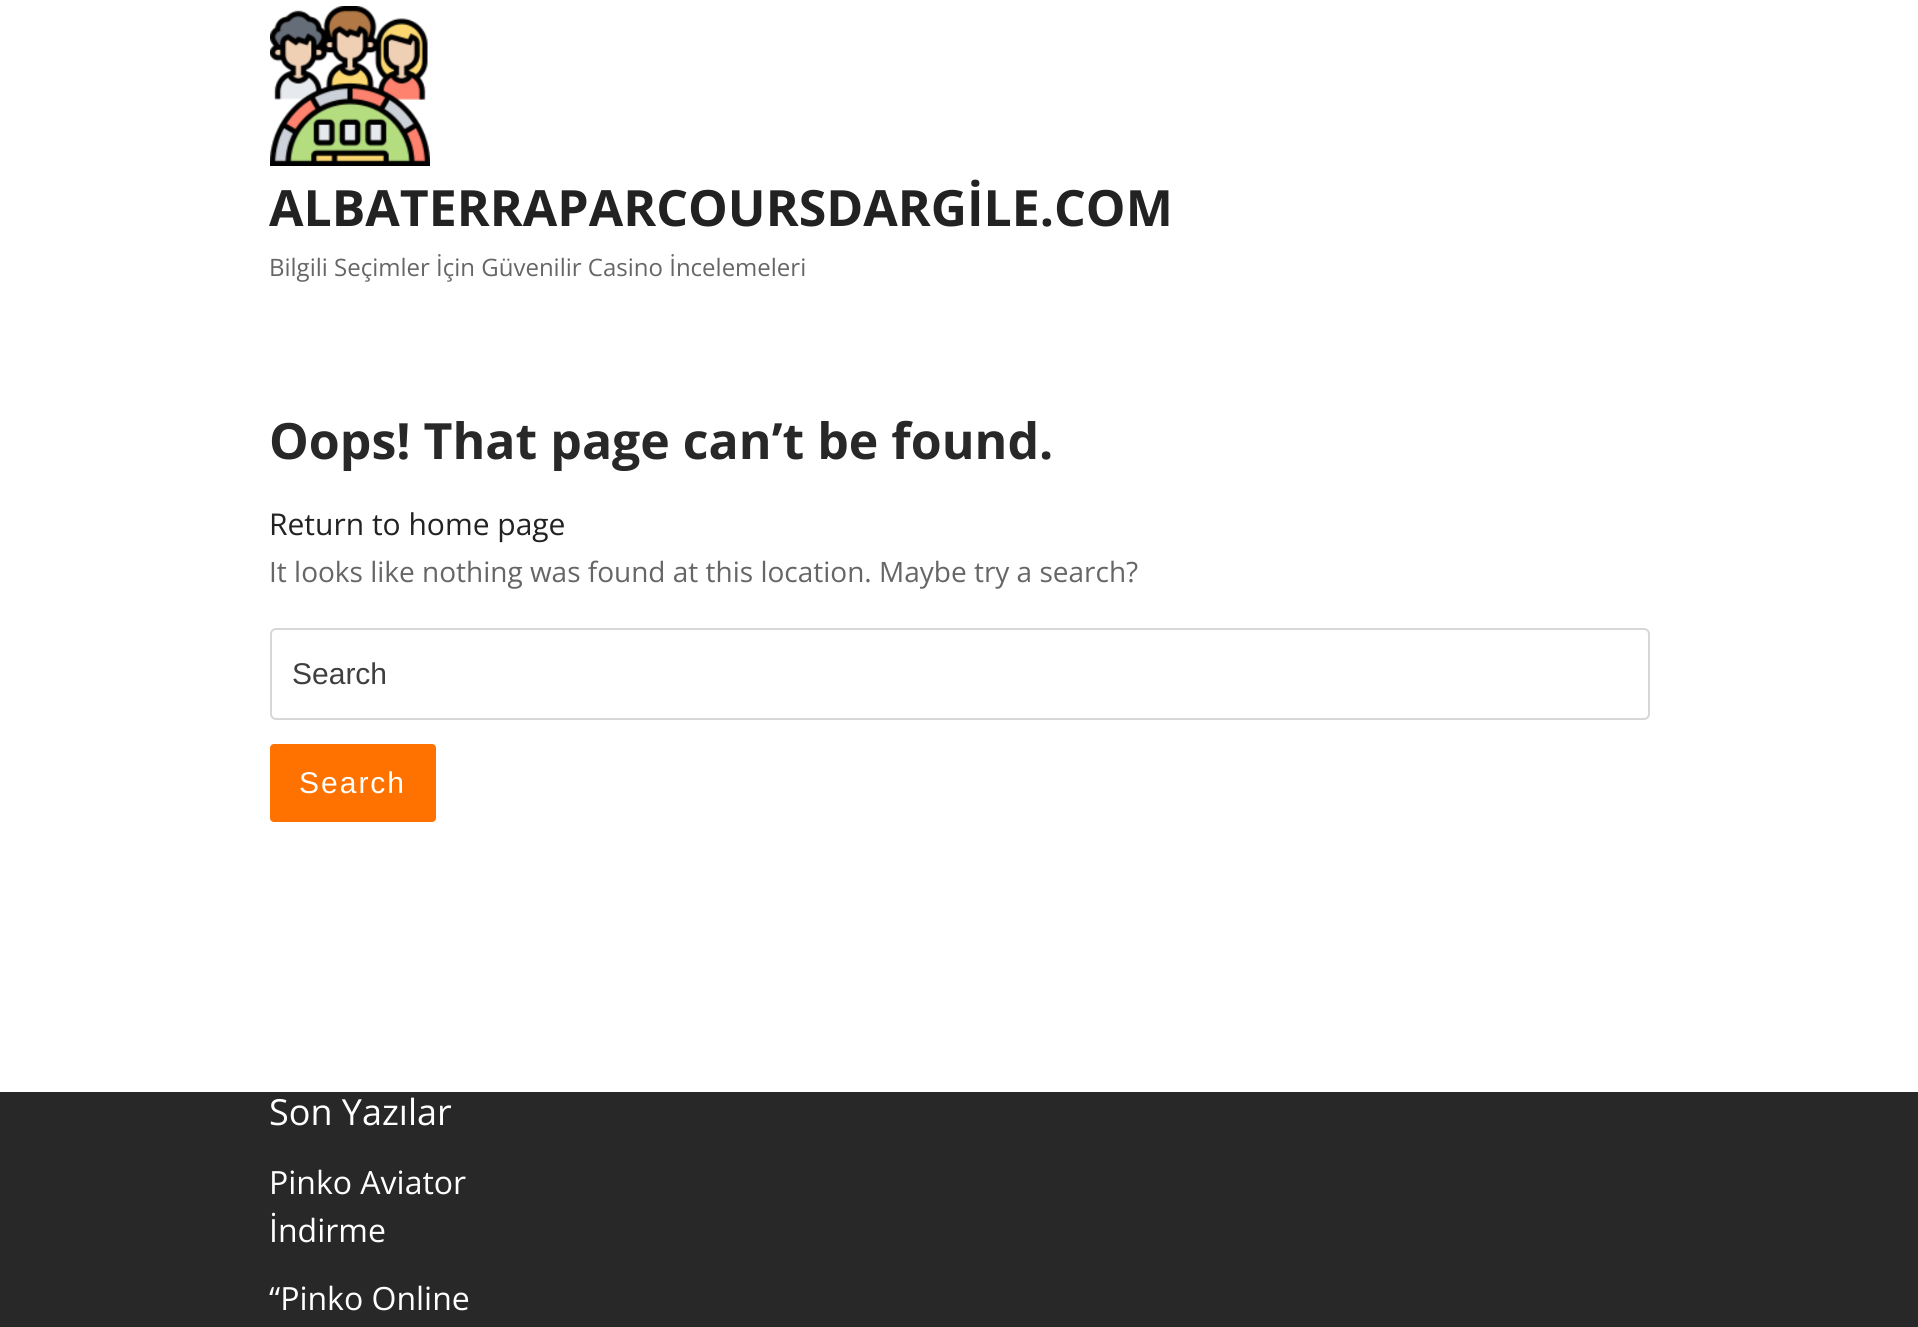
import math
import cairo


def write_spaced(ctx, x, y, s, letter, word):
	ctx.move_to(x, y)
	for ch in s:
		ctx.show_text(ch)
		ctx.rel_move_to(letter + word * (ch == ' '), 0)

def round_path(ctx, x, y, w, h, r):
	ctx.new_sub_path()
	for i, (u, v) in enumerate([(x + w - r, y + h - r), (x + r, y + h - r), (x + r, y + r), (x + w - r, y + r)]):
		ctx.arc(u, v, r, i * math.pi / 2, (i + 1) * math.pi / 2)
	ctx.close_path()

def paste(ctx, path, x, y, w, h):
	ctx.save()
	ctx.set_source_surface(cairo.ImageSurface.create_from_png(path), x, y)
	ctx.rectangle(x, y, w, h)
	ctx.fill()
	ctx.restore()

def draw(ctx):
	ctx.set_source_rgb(1, 1, 1)
	ctx.paint()
	paste(ctx, 'media/1.png', 270, 6, 160, 160)
	ctx.select_font_face('Open Sans', cairo.FONT_SLANT_NORMAL, cairo.FONT_WEIGHT_BOLD)
	ctx.set_font_size(50)
	ctx.set_source_rgb(0.133, 0.133, 0.133)
	ctx.move_to(269, 226)
	ctx.show_text('ALBATERRAPARCOURSDARGİLE.COM')
	ctx.select_font_face('Open Sans')
	ctx.set_font_size(24)
	ctx.set_source_rgb(0.4, 0.4, 0.4)
	ctx.move_to(269, 276)
	ctx.show_text('Bilgili Seçimler İçin Güvenilir Casino İncelemeleri')
	ctx.select_font_face('Open Sans', cairo.FONT_SLANT_NORMAL, cairo.FONT_WEIGHT_BOLD)
	ctx.set_font_size(50)
	ctx.set_source_rgb(0.157, 0.157, 0.157)
	ctx.move_to(269, 459)
	ctx.show_text('Oops! That page can’t be found.')
	ctx.select_font_face('Open Sans')
	ctx.set_font_size(30)
	ctx.set_source_rgb(0.133, 0.133, 0.133)
	ctx.move_to(269, 535)
	ctx.show_text('Return to home page')
	ctx.set_font_size(28)
	ctx.set_source_rgb(0.4, 0.4, 0.4)
	ctx.move_to(269, 582)
	ctx.show_text('It looks like nothing was found at this location. Maybe try a search?')
	round_path(ctx, 271, 629, 1378, 90, 5)
	ctx.set_source_rgb(0.843, 0.843, 0.843)
	ctx.stroke()
	ctx.select_font_face('Liberation Sans')
	ctx.set_font_size(30)
	ctx.set_source_rgb(0.247, 0.247, 0.247)
	ctx.move_to(292, 684)
	ctx.show_text('Search')
	ctx.set_source_rgb(1, 0.447, 0)
	round_path(ctx, 270, 744, 166, 78, 4)
	ctx.fill()
	ctx.set_source_rgb(1, 1, 1)
	write_spaced(ctx, 299, 793, 'Search', 2, 0)
	ctx.set_source_rgb(0.157, 0.157, 0.157)
	ctx.rectangle(0, 1092, 1918, 235)
	ctx.fill()
	ctx.select_font_face('Open Sans')
	ctx.set_font_size(36)
	ctx.set_source_rgb(1, 1, 1)
	ctx.move_to(269, 1125)
	ctx.show_text('Son Yazılar')
	ctx.set_font_size(32)
	for x, y, s in [
		(269, 1194, 'Pinko Aviator'),
		(269, 1242, 'İndirme'),
		(269, 1310, '“Pinko Online'),
	]:
		ctx.move_to(x, y)
		ctx.show_text(s)


surface = cairo.ImageSurface(cairo.FORMAT_RGB24, 1918, 1327)
ctx = cairo.Context(surface)
options = cairo.FontOptions()
options.set_hint_metrics(cairo.HINT_METRICS_OFF)
options.set_hint_style(cairo.HINT_STYLE_NONE)
ctx.set_font_options(options)
ctx.set_miter_limit(4)
draw(ctx)
surface.write_to_png('image.png')
